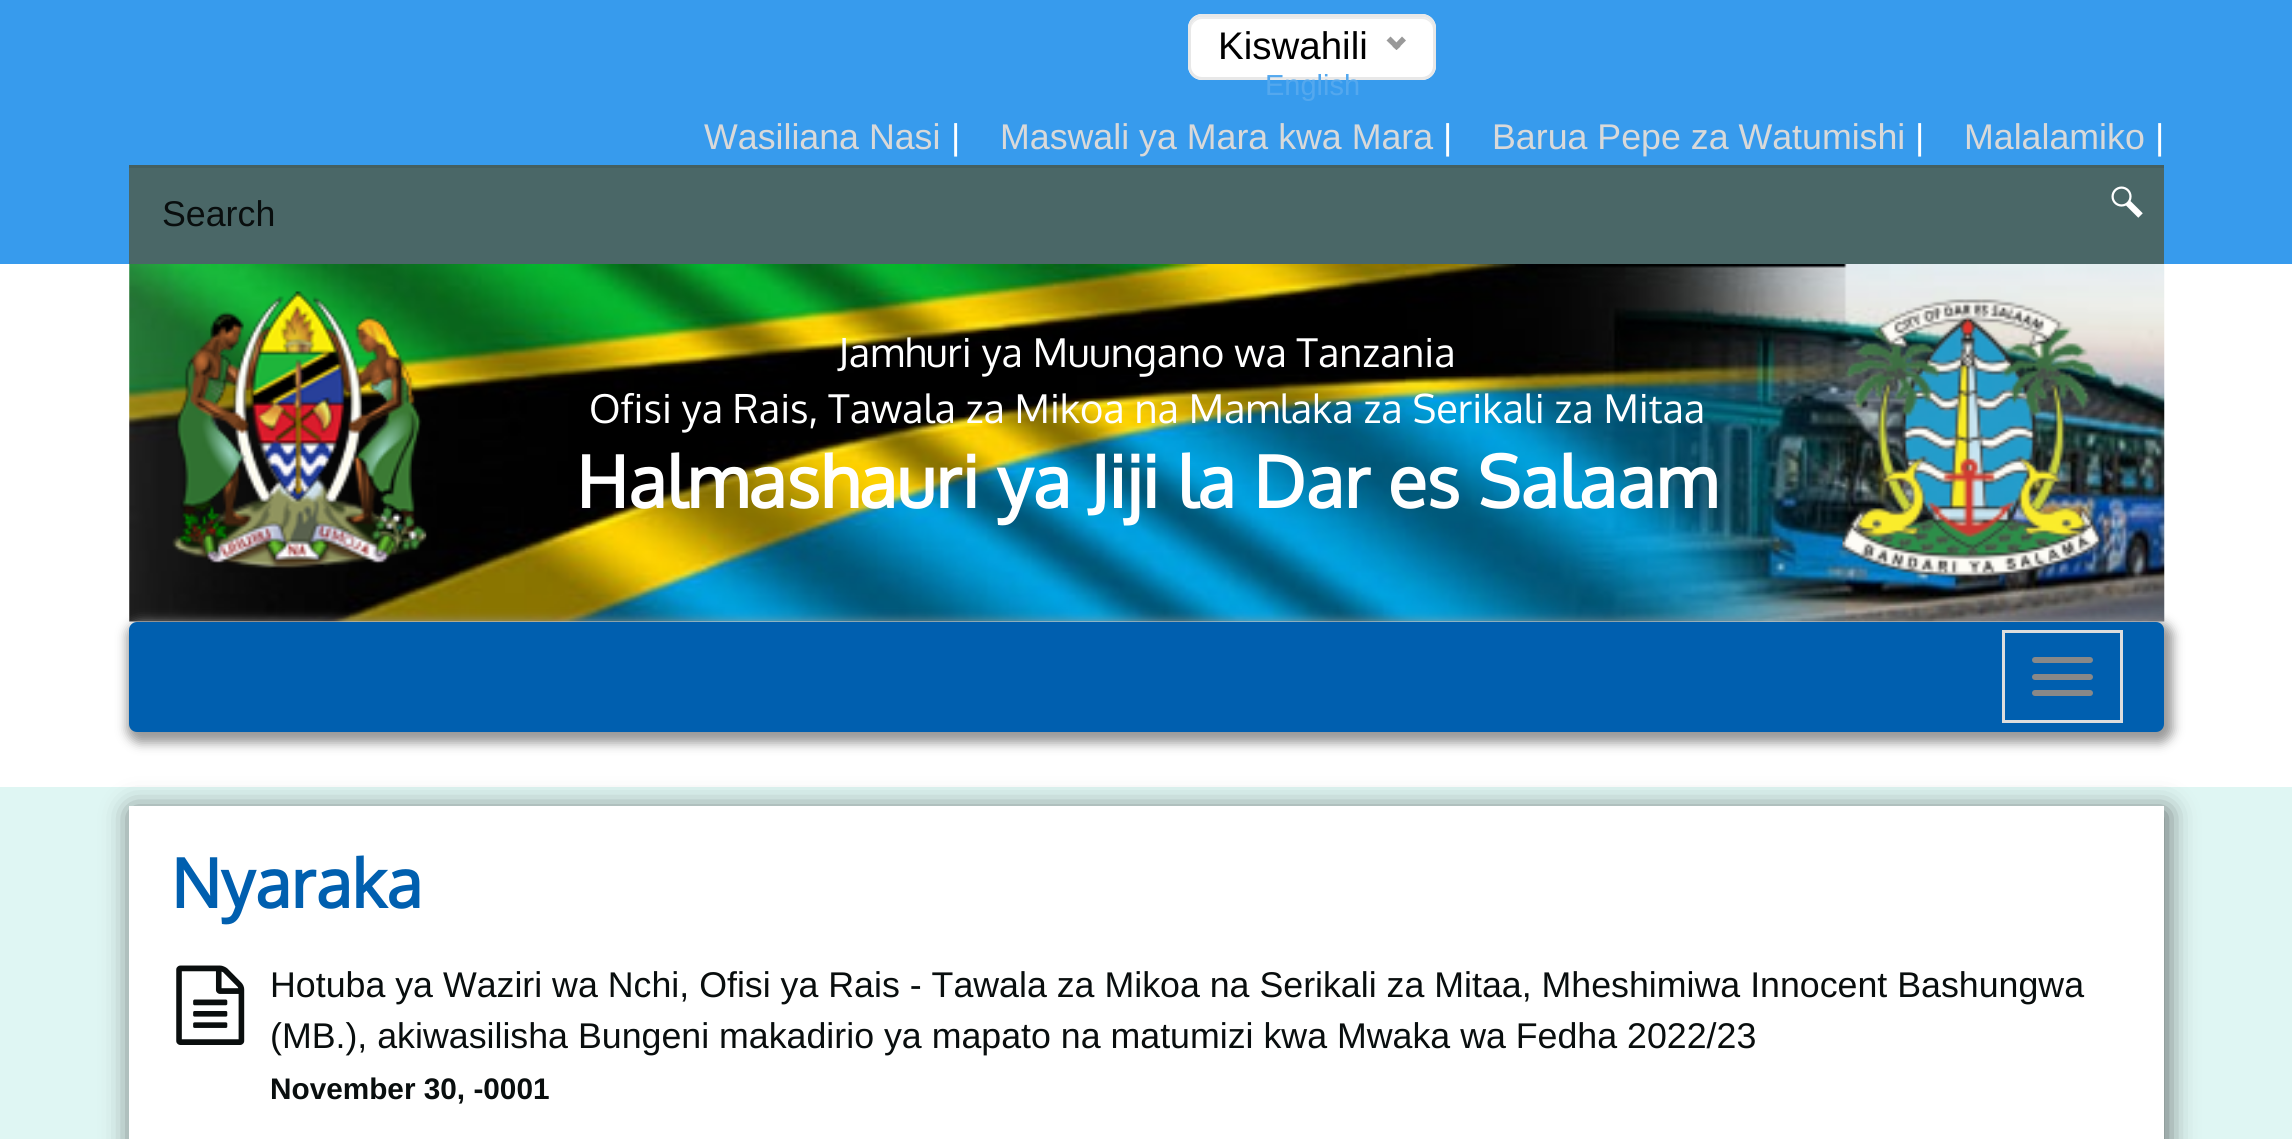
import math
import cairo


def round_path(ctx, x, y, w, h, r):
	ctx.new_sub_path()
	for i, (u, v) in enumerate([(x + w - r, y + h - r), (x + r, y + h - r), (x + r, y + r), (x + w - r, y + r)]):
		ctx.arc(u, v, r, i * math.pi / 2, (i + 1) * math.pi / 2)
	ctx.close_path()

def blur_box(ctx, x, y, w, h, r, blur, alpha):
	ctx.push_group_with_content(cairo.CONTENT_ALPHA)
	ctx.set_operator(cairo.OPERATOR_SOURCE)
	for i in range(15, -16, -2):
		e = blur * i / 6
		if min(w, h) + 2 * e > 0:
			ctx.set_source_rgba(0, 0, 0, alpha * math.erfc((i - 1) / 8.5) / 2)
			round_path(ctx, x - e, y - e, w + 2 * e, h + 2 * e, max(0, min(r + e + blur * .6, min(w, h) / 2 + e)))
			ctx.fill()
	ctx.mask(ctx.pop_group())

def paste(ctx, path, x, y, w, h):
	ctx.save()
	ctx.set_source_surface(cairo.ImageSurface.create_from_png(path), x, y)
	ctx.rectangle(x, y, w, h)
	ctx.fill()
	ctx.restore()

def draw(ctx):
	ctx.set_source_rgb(0.875, 0.961, 0.953)
	ctx.paint()
	ctx.set_source_rgb(0.216, 0.608, 0.929)
	ctx.rectangle(0, 0, 2292, 264)
	ctx.fill()
	ctx.set_source_rgb(1, 1, 1)
	round_path(ctx, 1188, 14, 248, 66, 14)
	ctx.fill()
	ctx.set_source_rgb(0.925, 0.925, 0.925)
	ctx.new_path()
	ctx.move_to(1202, 19)
	ctx.line_to(1422, 19)
	ctx.curve_to(1428, 19, 1433, 24, 1433, 30)
	ctx.line_to(1433, 28)
	ctx.curve_to(1433, 22, 1428, 17, 1422, 17)
	ctx.line_to(1202, 17)
	ctx.curve_to(1196, 17, 1191, 22, 1191, 28)
	ctx.line_to(1191, 30)
	ctx.curve_to(1191, 24, 1196, 19, 1202, 19)
	ctx.close_path()
	ctx.fill()
	round_path(ctx, 1189.5, 15.5, 245, 63, 12.5)
	ctx.set_source_rgb(0.91, 0.91, 0.91)
	ctx.set_line_width(3)
	ctx.stroke()
	ctx.select_font_face('Liberation Sans')
	ctx.set_font_size(38.5)
	ctx.set_source_rgb(0, 0, 0)
	ctx.move_to(1218, 59)
	ctx.show_text('Kiswahili')
	ctx.set_source_rgb(0.6, 0.6, 0.6)
	ctx.new_path()
	ctx.move_to(1402, 36.5)
	ctx.line_to(1406, 40.5)
	ctx.line_to(1396.5, 50)
	ctx.line_to(1392.5, 46.5)
	ctx.close_path()
	ctx.fill()
	ctx.new_path()
	ctx.move_to(1390.5, 36.5)
	ctx.line_to(1400.5, 46.5)
	ctx.line_to(1396.5, 50)
	ctx.line_to(1386.5, 40.5)
	ctx.close_path()
	ctx.fill()
	ctx.set_font_size(29)
	ctx.set_source_rgb(0.329, 0.659, 0.933)
	ctx.move_to(1265, 95)
	ctx.show_text('English')
	ctx.set_font_size(35.75)
	ctx.set_source_rgb(0.851, 0.851, 0.851)
	ctx.move_to(704, 149)
	ctx.show_text('Wasiliana Nasi')
	ctx.set_source_rgb(1, 1, 1)
	ctx.move_to(951, 149)
	ctx.show_text('|')
	ctx.set_source_rgb(0.851, 0.851, 0.851)
	ctx.move_to(1000, 149)
	ctx.show_text('Maswali ya Mara kwa Mara')
	ctx.set_source_rgb(1, 1, 1)
	ctx.move_to(1443, 149)
	ctx.show_text('|')
	ctx.set_source_rgb(0.851, 0.851, 0.851)
	ctx.move_to(1492, 149)
	ctx.show_text('Barua Pepe za Watumishi')
	ctx.set_source_rgb(1, 1, 1)
	ctx.move_to(1915, 149)
	ctx.show_text('|')
	ctx.set_source_rgb(0.851, 0.851, 0.851)
	ctx.move_to(1964, 149)
	ctx.show_text('Malalamiko')
	ctx.set_source_rgb(1, 1, 1)
	ctx.move_to(2155, 149)
	ctx.show_text('|')
	ctx.set_source_rgb(0.29, 0.404, 0.404)
	ctx.rectangle(129, 168, 2035, 96)
	ctx.fill()
	ctx.set_source_rgb(0.267, 0.373, 0.373)
	ctx.rectangle(129, 165, 2035, 3)
	ctx.fill()
	ctx.set_source_rgb(0.039, 0.055, 0.055)
	ctx.move_to(162, 226)
	ctx.show_text('Search')
	paste(ctx, 'media/1.png', 2111, 186, 32, 32)
	ctx.set_source_rgb(1, 1, 1)
	ctx.rectangle(0, 264, 2292, 523)
	ctx.fill()
	paste(ctx, 'media/2.png', 129, 264, 2036, 358)
	paste(ctx, 'media/3.png', 172, 291, 255, 278)
	ctx.select_font_face('Oxygen')
	ctx.set_font_size(39.75)
	ctx.move_to(838, 367)
	ctx.show_text('Jamhuri ya Muungano wa Tanzania')
	ctx.move_to(589, 423)
	ctx.show_text('Ofisi ya Rais, Tawala za Mikoa na Mamlaka za Serikali za Mitaa')
	ctx.select_font_face('Oxygen', cairo.FONT_SLANT_NORMAL, cairo.FONT_WEIGHT_BOLD)
	ctx.set_font_size(71.5)
	ctx.move_to(576, 508)
	ctx.show_text('Halmashauri ya Jiji la Dar es Salaam')
	paste(ctx, 'media/4.png', 1842, 299, 260, 280)
	ctx.set_source_rgb(0.6, 0.6, 0.6)
	blur_box(ctx, 127, 622, 2046, 121, 14, 5.5, 1)
	ctx.set_source_rgb(0, 0.373, 0.686)
	round_path(ctx, 129, 622, 2035, 110, 8)
	ctx.fill()
	ctx.rectangle(2003.5, 631.5, 118, 90)
	ctx.set_source_rgb(0.867, 0.867, 0.867)
	ctx.stroke()
	ctx.set_source_rgb(0.533, 0.533, 0.533)
	round_path(ctx, 2032, 657, 61, 6, 3)
	ctx.fill()
	round_path(ctx, 2032, 674, 61, 6, 3)
	ctx.fill()
	round_path(ctx, 2032, 690, 61, 6, 3)
	ctx.fill()
	ctx.set_source_rgb(0.196, 0.196, 0.196)
	blur_box(ctx, 132, 811, 2035, 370, 0, 14, 0.75)
	ctx.set_source_rgb(1, 1, 1)
	ctx.rectangle(129, 806, 2035, 333)
	ctx.fill()
	ctx.set_font_size(67.5)
	ctx.set_source_rgb(0, 0.373, 0.686)
	ctx.move_to(171, 908)
	ctx.show_text('Nyaraka')
	paste(ctx, 'media/5.png', 176, 965, 69, 80)
	ctx.select_font_face('Liberation Sans')
	ctx.set_font_size(35.75)
	ctx.set_source_rgb(0.039, 0.055, 0.055)
	ctx.move_to(270, 997)
	ctx.show_text('Hotuba ya Waziri wa Nchi, Ofisi ya Rais - Tawala za Mikoa na Serikali za Mitaa, Mheshimiwa Innocent Bashungwa')
	ctx.move_to(270, 1048)
	ctx.show_text('(MB.), akiwasilisha Bungeni makadirio ya mapato na matumizi kwa Mwaka wa Fedha 2022/23')
	ctx.select_font_face('Liberation Sans', cairo.FONT_SLANT_NORMAL, cairo.FONT_WEIGHT_BOLD)
	ctx.set_font_size(29.75)
	ctx.move_to(270, 1099)
	ctx.show_text('November 30, -0001')


surface = cairo.ImageSurface(cairo.FORMAT_RGB24, 2292, 1139)
ctx = cairo.Context(surface)
options = cairo.FontOptions()
options.set_hint_metrics(cairo.HINT_METRICS_OFF)
options.set_hint_style(cairo.HINT_STYLE_NONE)
ctx.set_font_options(options)
ctx.set_miter_limit(4)
draw(ctx)
surface.write_to_png('image.png')
